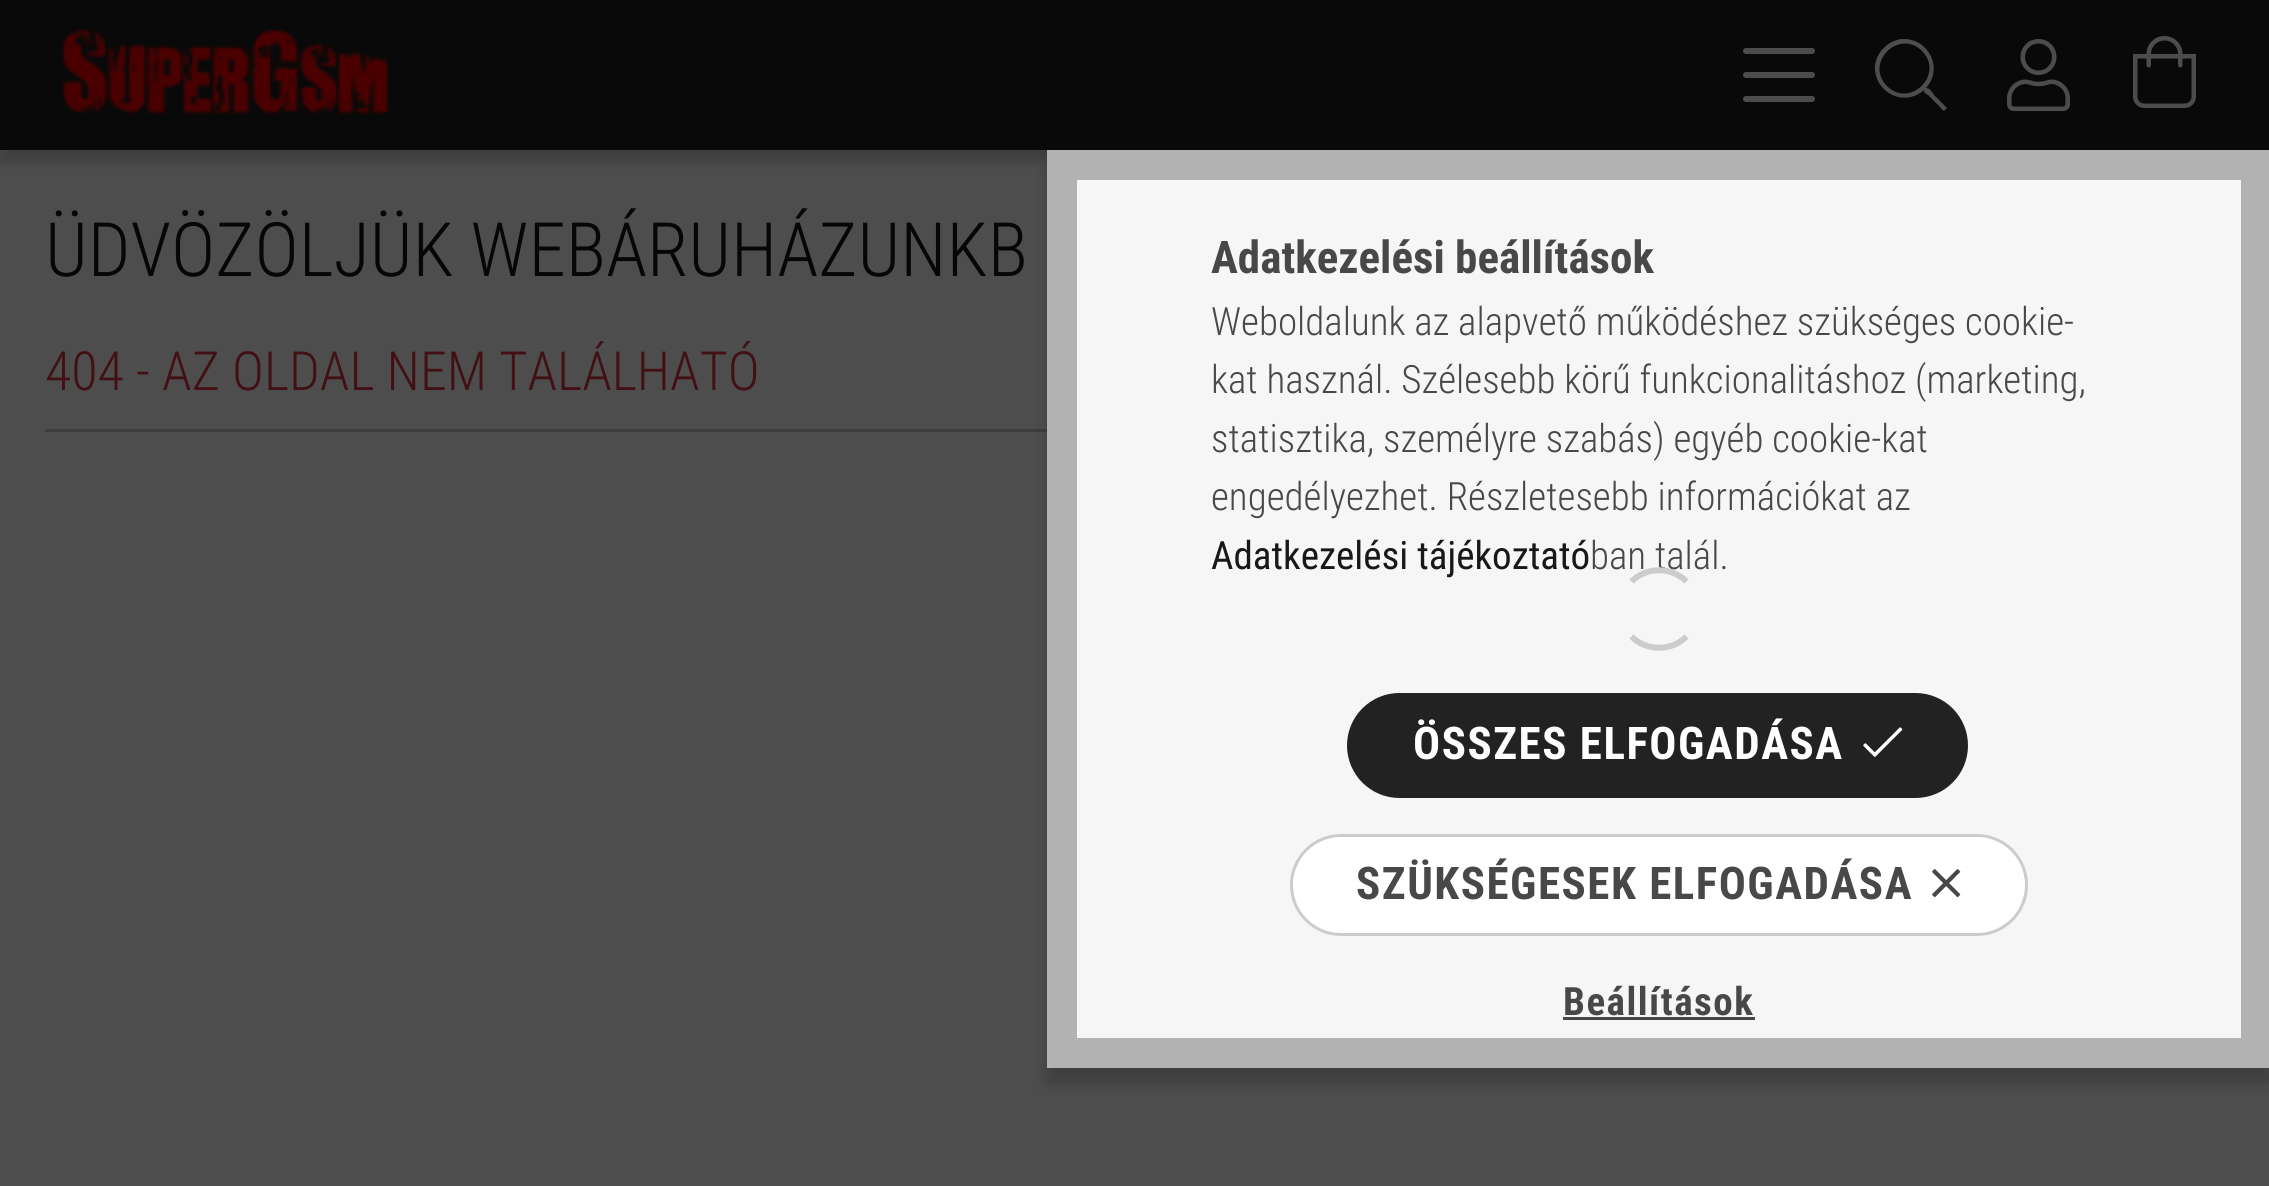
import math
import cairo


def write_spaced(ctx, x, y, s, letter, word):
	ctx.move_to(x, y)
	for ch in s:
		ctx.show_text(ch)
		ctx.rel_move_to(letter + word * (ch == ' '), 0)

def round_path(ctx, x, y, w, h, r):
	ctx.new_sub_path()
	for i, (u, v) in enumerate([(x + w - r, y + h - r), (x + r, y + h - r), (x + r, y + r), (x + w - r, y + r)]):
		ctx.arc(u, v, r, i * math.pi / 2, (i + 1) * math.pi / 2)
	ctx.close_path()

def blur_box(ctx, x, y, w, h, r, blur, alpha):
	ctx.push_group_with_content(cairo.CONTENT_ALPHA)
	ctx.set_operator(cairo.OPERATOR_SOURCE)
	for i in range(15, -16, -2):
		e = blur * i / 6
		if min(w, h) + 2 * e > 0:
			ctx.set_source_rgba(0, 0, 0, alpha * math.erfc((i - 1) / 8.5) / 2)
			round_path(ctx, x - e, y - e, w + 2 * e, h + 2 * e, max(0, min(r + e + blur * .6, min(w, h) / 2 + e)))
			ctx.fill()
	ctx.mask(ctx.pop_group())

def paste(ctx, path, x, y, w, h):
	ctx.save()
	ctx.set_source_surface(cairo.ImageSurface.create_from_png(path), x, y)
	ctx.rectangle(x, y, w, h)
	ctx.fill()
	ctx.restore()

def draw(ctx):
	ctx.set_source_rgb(0.302, 0.302, 0.302)
	ctx.paint()
	ctx.set_source_rgb(0, 0, 0)
	blur_box(ctx, 0, 12, 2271, 150, 0, 6, 0.2)
	ctx.set_source_rgb(0.039, 0.039, 0.039)
	ctx.rectangle(0, 0, 2269, 150)
	ctx.fill()
	paste(ctx, 'media/1.png', 62, 28, 328, 87)
	ctx.set_source_rgb(0.302, 0.302, 0.302)
	round_path(ctx, 1743, 48, 72, 6, 3)
	ctx.fill()
	round_path(ctx, 1743, 72, 72, 6, 3)
	ctx.fill()
	round_path(ctx, 1743, 96, 72, 6, 3)
	ctx.fill()
	ctx.new_path()
	ctx.move_to(1946, 107)
	ctx.line_to(1947, 108)
	ctx.line_to(1945, 110)
	ctx.curve_to(1943, 112, 1941, 108, 1940, 107)
	ctx.line_to(1928, 95)
	ctx.curve_to(1925, 93, 1924, 93, 1924, 90)
	ctx.curve_to(1904, 108, 1873, 92, 1875, 65)
	ctx.curve_to(1876, 59, 1879, 52, 1884, 48)
	ctx.curve_to(1888, 43, 1895, 40, 1901, 39)
	ctx.curve_to(1928, 37, 1944, 68, 1926, 88)
	ctx.curve_to(1930, 88, 1932, 92, 1934, 95)
	ctx.close_path()
	ctx.move_to(1887, 86)
	ctx.curve_to(1910, 109, 1945, 74, 1922, 51)
	ctx.curve_to(1899, 28, 1864, 63, 1887, 86)
	ctx.close_path()
	ctx.fill()
	paste(ctx, 'media/2.png', 2007, 39, 63, 72)
	paste(ctx, 'media/3.png', 2133, 36, 63, 72)
	ctx.select_font_face('Roboto Condensed Light')
	ctx.set_font_size(75)
	ctx.set_source_rgb(0.027, 0.027, 0.027)
	ctx.move_to(45, 276)
	ctx.show_text('ÜDVÖZÖLJÜK WEBÁRUHÁZUNKB')
	ctx.set_source_rgb(0.239, 0.239, 0.239)
	ctx.rectangle(45, 429, 1002, 3)
	ctx.fill()
	ctx.set_font_size(54)
	ctx.set_source_rgb(0.259, 0.063, 0.082)
	ctx.move_to(45, 390)
	ctx.show_text('404 - AZ OLDAL NEM TALÁLHATÓ')
	ctx.set_source_rgb(0, 0, 0)
	blur_box(ctx, 1047, 165, 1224, 918, 0, 7.5, 0.2)
	ctx.rectangle(1062, 165, 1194, 888)
	ctx.set_source_rgb(0.698, 0.698, 0.698)
	ctx.set_line_width(30)
	ctx.stroke()
	ctx.set_source_rgb(0.961, 0.961, 0.961)
	ctx.rectangle(1077, 180, 1164, 858)
	ctx.fill()
	ctx.select_font_face('Roboto Condensed', cairo.FONT_SLANT_NORMAL, cairo.FONT_WEIGHT_BOLD)
	ctx.set_font_size(45)
	ctx.set_source_rgb(0.282, 0.282, 0.282)
	ctx.move_to(1211, 273)
	ctx.show_text('Adatkezelési beállítások')
	ctx.select_font_face('Roboto Condensed Light')
	ctx.set_font_size(39)
	for x, y, s in [
		(1211, 335, 'Weboldalunk az alapvető működéshez szükséges cookie-'),
		(1211, 393, 'kat használ. Szélesebb körű funkcionalitáshoz (marketing,'),
		(1211, 452, 'statisztika, személyre szabás) egyéb cookie-kat'),
		(1211, 510, 'engedélyezhet. Részletesebb információkat az'),
	]:
		ctx.move_to(x, y)
		ctx.show_text(s)
	ctx.select_font_face('Roboto Condensed')
	ctx.set_source_rgb(0.094, 0.094, 0.094)
	ctx.move_to(1211, 569)
	ctx.show_text('Adatkezelési tájékoztató')
	ctx.select_font_face('Roboto Condensed Light')
	ctx.set_source_rgb(0.282, 0.282, 0.282)
	ctx.move_to(1590, 569)
	ctx.show_text('ban talál.')
	ctx.set_source_rgb(0.133, 0.133, 0.133)
	round_path(ctx, 1348.5, 694.5, 618, 102, 51)
	ctx.fill_preserve()
	ctx.set_line_width(3)
	ctx.stroke()
	ctx.select_font_face('Roboto Condensed', cairo.FONT_SLANT_NORMAL, cairo.FONT_WEIGHT_BOLD)
	ctx.set_font_size(45)
	ctx.set_source_rgb(1, 1, 1)
	write_spaced(ctx, 1413, 759, 'ÖSSZES ELFOGADÁSA', 1.5, 0)
	paste(ctx, 'media/4.png', 1863, 727, 40, 30)
	round_path(ctx, 1291.5, 835.5, 735, 99, 49.5)
	ctx.fill_preserve()
	ctx.set_source_rgb(0.8, 0.8, 0.8)
	ctx.stroke()
	ctx.set_source_rgb(0.282, 0.282, 0.282)
	write_spaced(ctx, 1356, 899, 'SZÜKSÉGESEK ELFOGADÁSA', 1.5, 0)
	paste(ctx, 'media/5.png', 1932, 869, 29, 29)
	ctx.set_font_size(39)
	write_spaced(ctx, 1563, 1015, 'Beállítások', 1.5, 0)
	ctx.rectangle(1563, 1017, 192, 3)
	ctx.fill()
	ctx.new_path()
	ctx.move_to(1631.5, 581.5)
	ctx.curve_to(1646.5, 566.5, 1671.5, 566.5, 1686.5, 581.5)
	ctx.set_source_rgb(0.8, 0.8, 0.8)
	ctx.set_line_width(6)
	ctx.stroke()
	ctx.new_path()
	ctx.move_to(1686.5, 636.5)
	ctx.curve_to(1671.5, 651.5, 1646.5, 651.5, 1631.5, 636.5)
	ctx.stroke()


surface = cairo.ImageSurface(cairo.FORMAT_RGB24, 2269, 1186)
ctx = cairo.Context(surface)
options = cairo.FontOptions()
options.set_hint_metrics(cairo.HINT_METRICS_OFF)
options.set_hint_style(cairo.HINT_STYLE_NONE)
ctx.set_font_options(options)
ctx.set_miter_limit(4)
draw(ctx)
surface.write_to_png('image.png')
